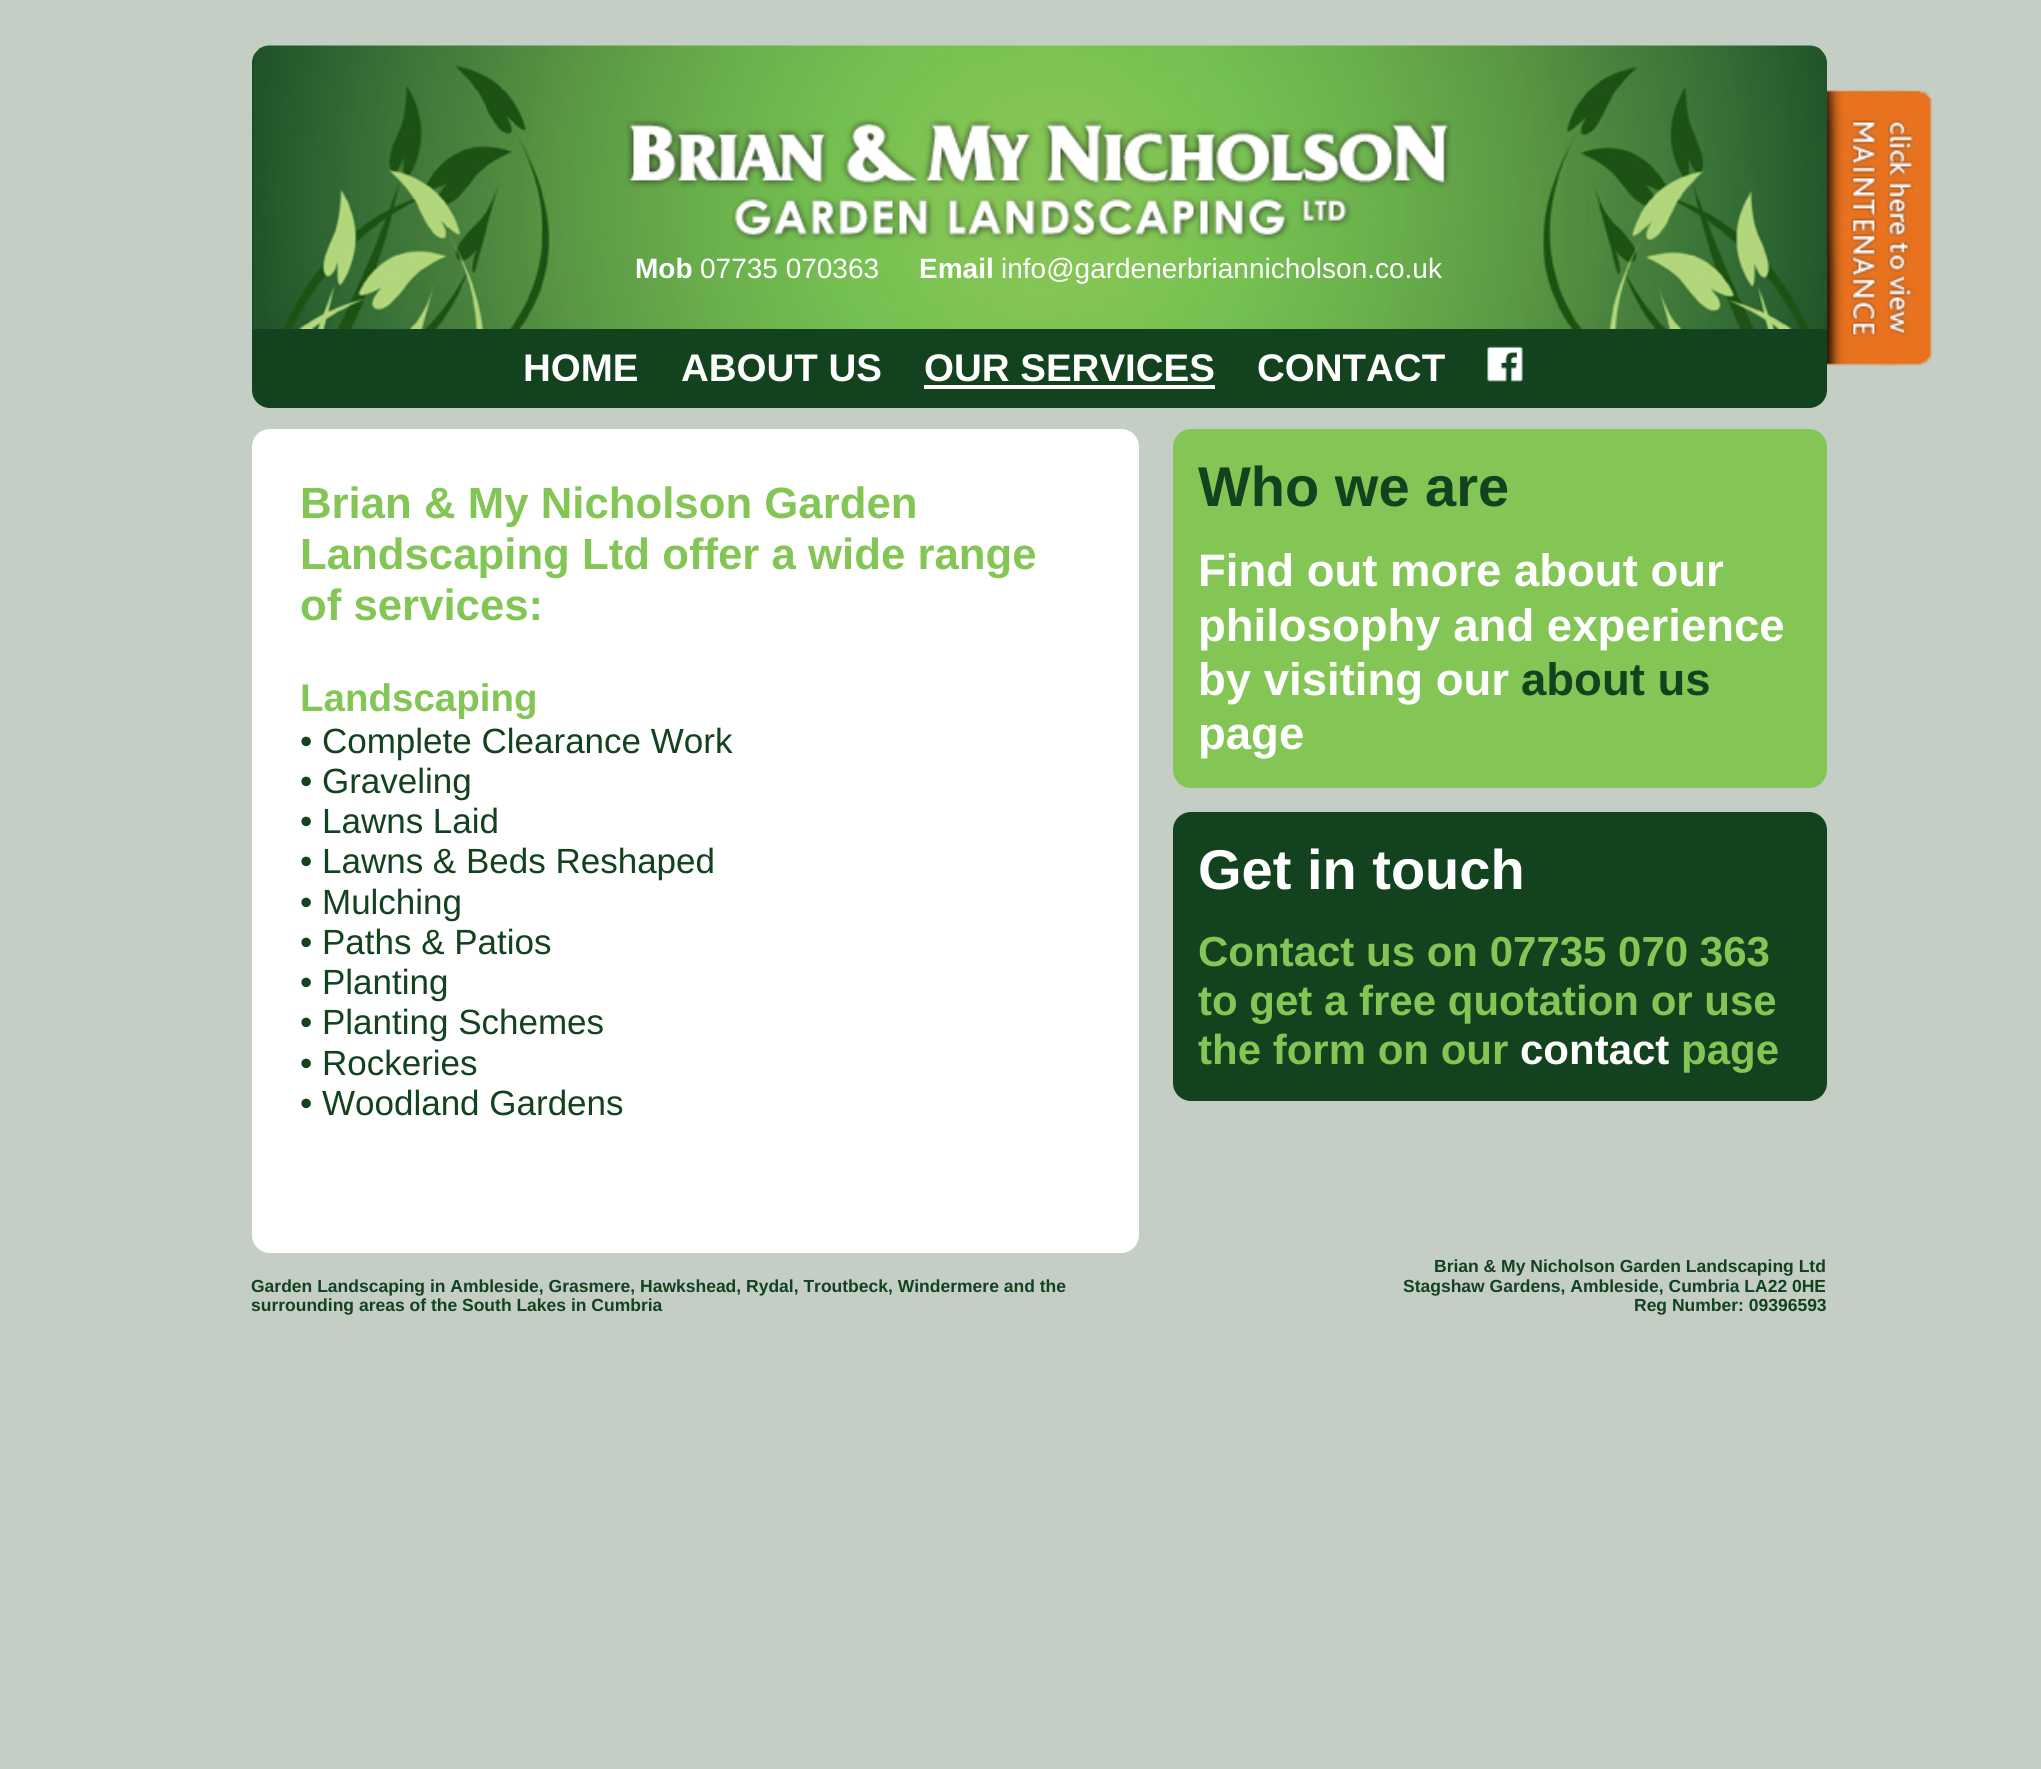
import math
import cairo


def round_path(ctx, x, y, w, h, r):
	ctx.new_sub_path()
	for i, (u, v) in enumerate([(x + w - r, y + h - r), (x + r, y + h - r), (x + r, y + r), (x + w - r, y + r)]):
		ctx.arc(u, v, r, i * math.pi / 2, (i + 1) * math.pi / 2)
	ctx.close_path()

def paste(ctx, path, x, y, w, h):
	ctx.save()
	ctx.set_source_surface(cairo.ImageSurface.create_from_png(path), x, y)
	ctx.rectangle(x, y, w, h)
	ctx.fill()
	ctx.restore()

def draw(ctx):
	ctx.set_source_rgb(0.769, 0.808, 0.773)
	ctx.paint()
	paste(ctx, 'media/1.png', 252, 45, 1575, 284)
	paste(ctx, 'media/2.png', 626, 118, 826, 123)
	ctx.select_font_face('Liberation Sans', cairo.FONT_SLANT_NORMAL, cairo.FONT_WEIGHT_BOLD)
	ctx.set_font_size(28)
	ctx.set_source_rgb(1, 1, 1)
	ctx.move_to(635, 278)
	ctx.show_text('Mob')
	ctx.select_font_face('Liberation Sans')
	ctx.move_to(700, 278)
	ctx.show_text('07735 070363')
	ctx.select_font_face('Liberation Sans', cairo.FONT_SLANT_NORMAL, cairo.FONT_WEIGHT_BOLD)
	ctx.move_to(919, 278)
	ctx.show_text('Email')
	ctx.select_font_face('Liberation Sans')
	ctx.move_to(1001, 278)
	ctx.show_text('info@gardenerbriannicholson.co.uk')
	paste(ctx, 'media/3.png', 1827, 89, 105, 277)
	ctx.set_source_rgb(0.078, 0.259, 0.118)
	ctx.new_path()
	ctx.move_to(252, 329)
	ctx.line_to(1827, 329)
	ctx.line_to(1827, 390)
	ctx.curve_to(1827, 400, 1819, 408, 1809, 408)
	ctx.line_to(270, 408)
	ctx.curve_to(260, 408, 252, 400, 252, 390)
	ctx.close_path()
	ctx.fill()
	ctx.select_font_face('Liberation Sans', cairo.FONT_SLANT_NORMAL, cairo.FONT_WEIGHT_BOLD)
	ctx.set_font_size(38.5)
	ctx.set_source_rgb(1, 1, 1)
	for x, y, s in [
		(523, 381, 'HOME'),
		(681, 381, 'ABOUT US'),
		(924, 381, 'OUR SERVICES'),
	]:
		ctx.move_to(x, y)
		ctx.show_text(s)
	ctx.rectangle(924, 385, 291, 4)
	ctx.fill()
	ctx.move_to(1257, 381)
	ctx.show_text('CONTACT')
	paste(ctx, 'media/4.png', 1487, 346, 36, 36)
	round_path(ctx, 252, 429, 887, 824, 18)
	ctx.fill()
	ctx.set_font_size(43.75)
	ctx.set_source_rgb(0.514, 0.776, 0.333)
	for x, y, s in [
		(300, 518, 'Brian & My Nicholson Garden'),
		(300, 569, 'Landscaping Ltd offer a wide range'),
		(300, 620, 'of services:'),
	]:
		ctx.move_to(x, y)
		ctx.show_text(s)
	ctx.set_font_size(38.5)
	ctx.move_to(300, 711)
	ctx.show_text('Landscaping')
	ctx.select_font_face('Liberation Sans')
	ctx.set_font_size(35)
	ctx.set_source_rgb(0.078, 0.259, 0.118)
	for x, y, s in [
		(300, 753, '• Complete Clearance Work'),
		(300, 793, '• Graveling'),
		(300, 833, '• Lawns Laid'),
		(300, 873, '• Lawns & Beds Reshaped'),
		(300, 914, '• Mulching'),
		(300, 954, '• Paths & Patios'),
		(300, 994, '• Planting'),
		(300, 1034, '• Planting Schemes'),
		(300, 1075, '• Rockeries'),
		(300, 1115, '• Woodland Gardens'),
	]:
		ctx.move_to(x, y)
		ctx.show_text(s)
	ctx.set_source_rgb(0.514, 0.776, 0.333)
	round_path(ctx, 1173, 429, 654, 359, 18)
	ctx.fill()
	ctx.select_font_face('Liberation Sans', cairo.FONT_SLANT_NORMAL, cairo.FONT_WEIGHT_BOLD)
	ctx.set_font_size(56)
	ctx.set_source_rgb(0.078, 0.259, 0.118)
	ctx.move_to(1198, 506)
	ctx.show_text('Who we are')
	ctx.set_font_size(45.5)
	ctx.set_source_rgb(1, 1, 1)
	for x, y, s in [
		(1198, 586, 'Find out more about our'),
		(1198, 641, 'philosophy and experience'),
		(1198, 695, 'by visiting our'),
	]:
		ctx.move_to(x, y)
		ctx.show_text(s)
	ctx.set_source_rgb(0.078, 0.259, 0.118)
	ctx.move_to(1521, 695)
	ctx.show_text('about us')
	ctx.set_source_rgb(1, 1, 1)
	ctx.move_to(1198, 749)
	ctx.show_text('page')
	ctx.set_source_rgb(0.078, 0.259, 0.118)
	round_path(ctx, 1173, 812, 654, 289, 18)
	ctx.fill()
	ctx.set_font_size(56)
	ctx.set_source_rgb(1, 1, 1)
	ctx.move_to(1198, 889)
	ctx.show_text('Get in touch')
	ctx.set_font_size(42)
	ctx.set_source_rgb(0.514, 0.776, 0.333)
	for x, y, s in [
		(1198, 966, 'Contact us on 07735 070 363'),
		(1198, 1015, 'to get a free quotation or use'),
		(1198, 1064, 'the form on our'),
	]:
		ctx.move_to(x, y)
		ctx.show_text(s)
	ctx.set_source_rgb(1, 1, 1)
	ctx.move_to(1520, 1064)
	ctx.show_text('contact')
	ctx.set_source_rgb(0.514, 0.776, 0.333)
	ctx.move_to(1681, 1064)
	ctx.show_text('page')
	ctx.set_font_size(17.5)
	ctx.set_source_rgb(0.078, 0.259, 0.118)
	for x, y, s in [
		(251, 1292, 'Garden Landscaping in Ambleside, Grasmere, Hawkshead, Rydal, Troutbeck, Windermere and the'),
		(251, 1311, 'surrounding areas of the South Lakes in Cumbria'),
		(1434, 1272, 'Brian & My Nicholson Garden Landscaping Ltd'),
		(1403, 1292, 'Stagshaw Gardens, Ambleside, Cumbria LA22 0HE'),
		(1634, 1311, 'Reg Number: 09396593'),
	]:
		ctx.move_to(x, y)
		ctx.show_text(s)


surface = cairo.ImageSurface(cairo.FORMAT_RGB24, 2041, 1769)
ctx = cairo.Context(surface)
options = cairo.FontOptions()
options.set_hint_metrics(cairo.HINT_METRICS_OFF)
options.set_hint_style(cairo.HINT_STYLE_NONE)
ctx.set_font_options(options)
ctx.set_miter_limit(4)
draw(ctx)
surface.write_to_png('image.png')
